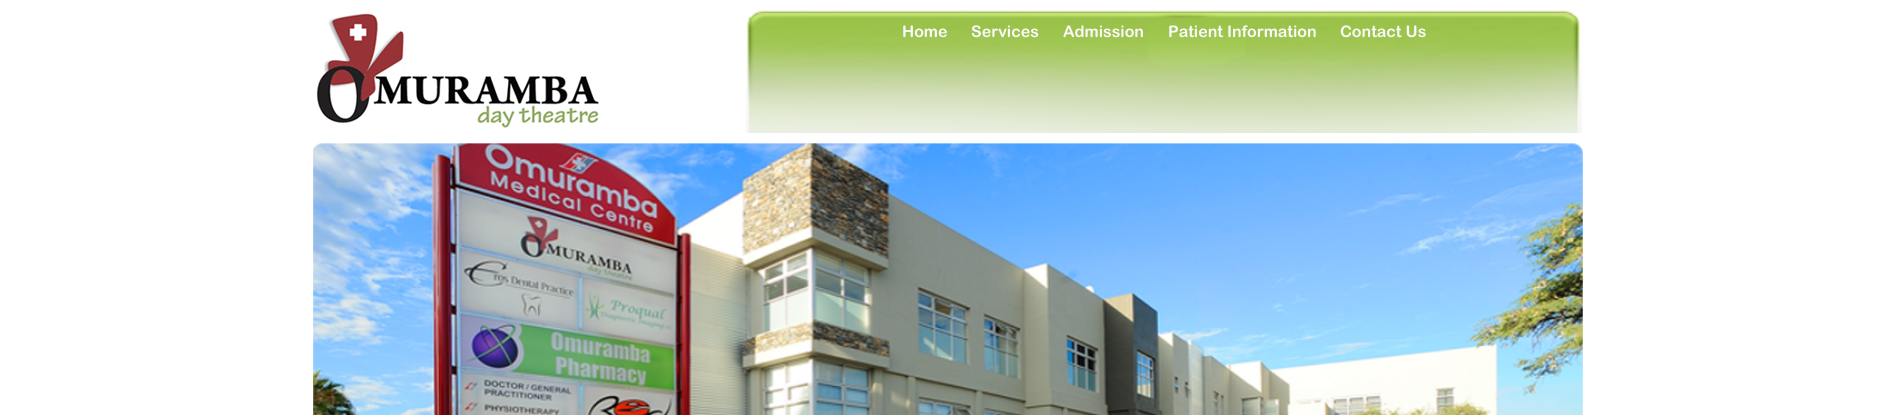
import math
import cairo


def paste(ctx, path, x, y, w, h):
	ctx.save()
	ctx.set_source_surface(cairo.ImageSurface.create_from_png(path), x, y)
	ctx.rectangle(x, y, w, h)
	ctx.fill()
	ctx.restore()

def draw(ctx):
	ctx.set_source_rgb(1, 1, 1)
	ctx.paint()
	paste(ctx, 'media/1.png', 316, 13, 283, 116)
	paste(ctx, 'media/2.png', 746, 10, 836, 123)
	ctx.select_font_face('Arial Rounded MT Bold', cairo.FONT_SLANT_NORMAL, cairo.FONT_WEIGHT_BOLD)
	ctx.set_font_size(16)
	ctx.set_source_rgb(0.976, 0.976, 0.976)
	for x, y, s in [
		(902, 37, 'Home'),
		(971, 37, 'Services'),
		(1063, 37, 'Admission'),
		(1168, 37, 'Patient Information'),
		(1340, 37, 'Contact Us'),
	]:
		ctx.move_to(x, y)
		ctx.show_text(s)
	paste(ctx, 'media/3.png', 313, 143, 1270, 272)
	paste(ctx, 'media/4.png', 1582, 152, 1, 213)


surface = cairo.ImageSurface(cairo.FORMAT_RGB24, 1895, 415)
ctx = cairo.Context(surface)
options = cairo.FontOptions()
options.set_hint_metrics(cairo.HINT_METRICS_OFF)
options.set_hint_style(cairo.HINT_STYLE_NONE)
ctx.set_font_options(options)
ctx.set_miter_limit(4)
draw(ctx)
surface.write_to_png('image.png')
